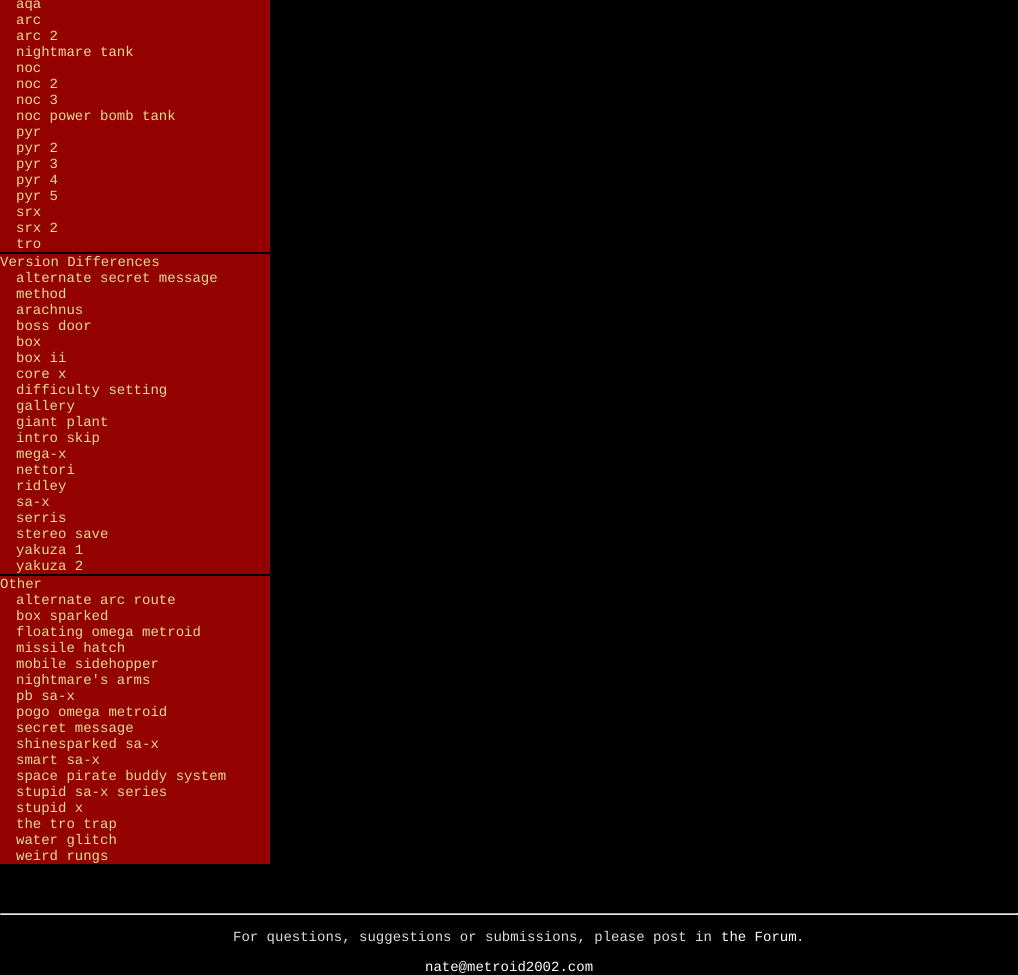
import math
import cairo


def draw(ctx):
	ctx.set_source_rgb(0, 0, 0)
	ctx.paint()
	ctx.set_source_rgb(0.58, 0.008, 0)
	ctx.rectangle(0, 0, 270, 252)
	ctx.fill()
	ctx.select_font_face('Liberation Mono')
	ctx.set_font_size(14)
	ctx.set_source_rgb(0.914, 0.859, 0.58)
	for x, y, s in [
		(16, 8, 'aqa'),
		(16, 24, 'arc'),
		(16, 40, 'arc 2'),
		(16, 56, 'nightmare tank'),
		(16, 72, 'noc'),
		(16, 88, 'noc 2'),
		(16, 104, 'noc 3'),
		(16, 120, 'noc power bomb tank'),
		(16, 136, 'pyr'),
		(16, 152, 'pyr 2'),
		(16, 168, 'pyr 3'),
		(16, 184, 'pyr 4'),
		(16, 200, 'pyr 5'),
		(16, 216, 'srx'),
		(16, 232, 'srx 2'),
		(16, 248, 'tro'),
	]:
		ctx.move_to(x, y)
		ctx.show_text(s)
	ctx.set_source_rgb(0.58, 0.008, 0)
	ctx.rectangle(0, 254, 270, 320)
	ctx.fill()
	ctx.set_source_rgb(0.914, 0.859, 0.58)
	for x, y, s in [
		(0, 266, 'Version Differences'),
		(16, 282, 'alternate secret message'),
		(16, 298, 'method'),
		(16, 314, 'arachnus'),
		(16, 330, 'boss door'),
		(16, 346, 'box'),
		(16, 362, 'box ii'),
		(16, 378, 'core x'),
		(16, 394, 'difficulty setting'),
		(16, 410, 'gallery'),
		(16, 426, 'giant plant'),
		(16, 442, 'intro skip'),
		(16, 458, 'mega-x'),
		(16, 474, 'nettori'),
		(16, 490, 'ridley'),
		(16, 506, 'sa-x'),
		(16, 522, 'serris'),
		(16, 538, 'stereo save'),
		(16, 554, 'yakuza 1'),
		(16, 570, 'yakuza 2'),
	]:
		ctx.move_to(x, y)
		ctx.show_text(s)
	ctx.set_source_rgb(0.58, 0.008, 0)
	ctx.rectangle(0, 576, 270, 288)
	ctx.fill()
	ctx.set_source_rgb(0.914, 0.859, 0.58)
	for x, y, s in [
		(0, 588, 'Other'),
		(16, 604, 'alternate arc route'),
		(16, 620, 'box sparked'),
		(16, 636, 'floating omega metroid'),
		(16, 652, 'missile hatch'),
		(16, 668, 'mobile sidehopper'),
		(16, 684, 'nightmare\'s arms'),
		(16, 700, 'pb sa-x'),
		(16, 716, 'pogo omega metroid'),
		(16, 732, 'secret message'),
		(16, 748, 'shinesparked sa-x'),
		(16, 764, 'smart sa-x'),
		(16, 780, 'space pirate buddy system'),
		(16, 796, 'stupid sa-x series'),
		(16, 812, 'stupid x'),
		(16, 828, 'the tro trap'),
		(16, 844, 'water glitch'),
		(16, 860, 'weird rungs'),
	]:
		ctx.move_to(x, y)
		ctx.show_text(s)
	ctx.set_source_rgb(0.624, 0.624, 0.624)
	ctx.rectangle(0, 913, 1018, 1)
	ctx.fill()
	ctx.set_source_rgb(0.933, 0.933, 0.933)
	ctx.rectangle(1017, 913, 1, 2)
	ctx.rectangle(0, 914, 1018, 1)
	ctx.fill()
	ctx.set_source_rgb(0.624, 0.624, 0.624)
	ctx.rectangle(0, 913, 1, 2)
	ctx.fill()
	ctx.set_source_rgb(0.843, 0.875, 0.89)
	ctx.move_to(233, 941)
	ctx.show_text('For questions, suggestions or submissions, please post in')
	ctx.set_source_rgb(1, 1, 1)
	ctx.move_to(721, 941)
	ctx.show_text('the Forum')
	ctx.set_source_rgb(0.843, 0.875, 0.89)
	ctx.move_to(796, 941)
	ctx.show_text('.')
	ctx.set_source_rgb(1, 1, 1)
	ctx.move_to(425, 971)
	ctx.show_text('nate@metroid2002.com')


surface = cairo.ImageSurface(cairo.FORMAT_RGB24, 1018, 975)
ctx = cairo.Context(surface)
options = cairo.FontOptions()
options.set_hint_metrics(cairo.HINT_METRICS_OFF)
options.set_hint_style(cairo.HINT_STYLE_NONE)
ctx.set_font_options(options)
ctx.set_miter_limit(4)
draw(ctx)
surface.write_to_png('image.png')
